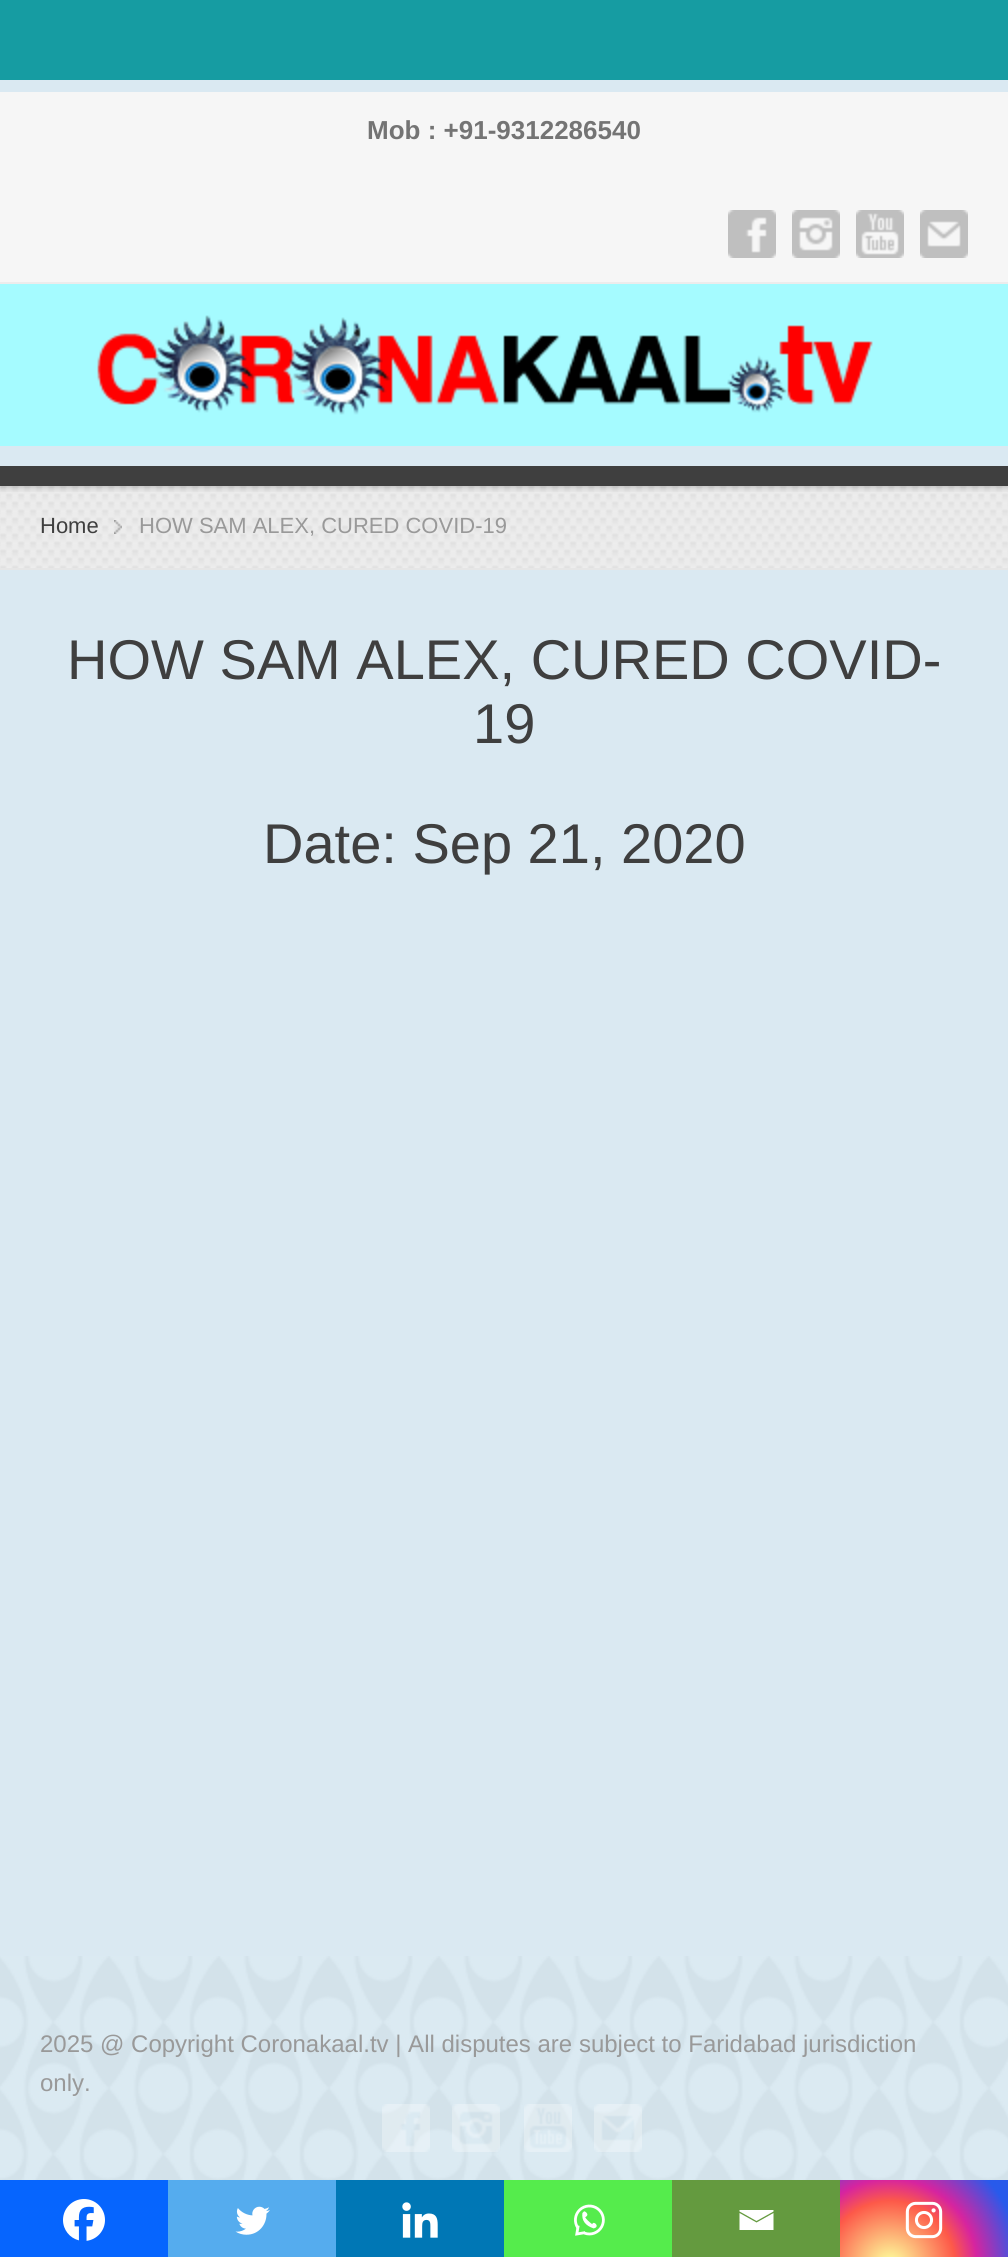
import math
import cairo


def round_path(ctx, x, y, w, h, r):
	ctx.new_sub_path()
	for i, (u, v) in enumerate([(x + w - r, y + h - r), (x + r, y + h - r), (x + r, y + r), (x + w - r, y + r)]):
		ctx.arc(u, v, r, i * math.pi / 2, (i + 1) * math.pi / 2)
	ctx.close_path()

def blur_box(ctx, x, y, w, h, r, blur, alpha):
	ctx.push_group_with_content(cairo.CONTENT_ALPHA)
	ctx.set_operator(cairo.OPERATOR_SOURCE)
	for i in range(15, -16, -2):
		e = blur * i / 6
		if min(w, h) + 2 * e > 0:
			ctx.set_source_rgba(0, 0, 0, alpha * math.erfc((i - 1) / 8.5) / 2)
			round_path(ctx, x - e, y - e, w + 2 * e, h + 2 * e, max(0, min(r + e + blur * .6, min(w, h) / 2 + e)))
			ctx.fill()
	ctx.mask(ctx.pop_group())

def paste(ctx, path, x, y, w, h):
	ctx.save()
	ctx.set_source_surface(cairo.ImageSurface.create_from_png(path), x, y)
	ctx.rectangle(x, y, w, h)
	ctx.fill()
	ctx.restore()

def draw(ctx):
	ctx.set_source_rgb(0.855, 0.914, 0.949)
	ctx.paint()
	ctx.set_source_rgb(0.086, 0.612, 0.635)
	ctx.rectangle(0, 0, 1008, 80)
	ctx.fill()
	ctx.set_source_rgb(0.925, 0.925, 0.925)
	ctx.rectangle(0, 486, 1008, 82)
	ctx.fill()
	paste(ctx, 'media/6.png', 0, 486, 1008, 82)
	ctx.save()
	ctx.rectangle(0, 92, 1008, 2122)
	ctx.clip()
	ctx.rectangle(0, 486, 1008, 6)
	ctx.clip()
	ctx.set_source_rgb(0, 0, 0)
	blur_box(ctx, 0, 92, 1008, 394, 0, 4, 0.3)
	ctx.restore()
	ctx.set_source_rgb(0.961, 0.961, 0.961)
	ctx.rectangle(0, 92, 1008, 190)
	ctx.fill()
	ctx.set_source_rgb(0.922, 0.922, 0.922)
	ctx.rectangle(0, 282, 1008, 2)
	ctx.fill()
	ctx.select_font_face('Liberation Sans', cairo.FONT_SLANT_NORMAL, cairo.FONT_WEIGHT_BOLD)
	ctx.set_font_size(26)
	ctx.set_source_rgb(0.455, 0.455, 0.455)
	ctx.move_to(367, 139)
	ctx.show_text('Mob : +91-9312286540')
	paste(ctx, 'media/1.png', 728, 210, 48, 48)
	paste(ctx, 'media/2.png', 792, 210, 48, 48)
	paste(ctx, 'media/3.png', 856, 210, 48, 48)
	paste(ctx, 'media/4.png', 920, 210, 48, 48)
	ctx.set_source_rgb(0.647, 0.984, 1)
	ctx.rectangle(0, 284, 1008, 162)
	ctx.fill()
	paste(ctx, 'media/5.png', 97, 315, 776, 100)
	ctx.set_source_rgb(0.247, 0.247, 0.247)
	ctx.rectangle(0, 466, 1008, 20)
	ctx.fill()
	ctx.set_source_rgb(0.902, 0.902, 0.902)
	ctx.rectangle(0, 568, 1008, 2)
	ctx.fill()
	ctx.select_font_face('Liberation Sans')
	ctx.set_font_size(22)
	ctx.set_source_rgb(0.247, 0.247, 0.247)
	ctx.move_to(40, 533)
	ctx.show_text('Home')
	paste(ctx, 'media/7.png', 114, 520, 8, 14)
	ctx.set_source_rgb(0.6, 0.6, 0.6)
	ctx.move_to(139, 533)
	ctx.show_text('HOW SAM ALEX, CURED COVID-19')
	ctx.set_font_size(56)
	ctx.set_source_rgb(0.247, 0.247, 0.247)
	for x, y, s in [
		(67, 679, 'HOW SAM ALEX, CURED COVID-'),
		(473, 743, '19'),
		(263, 863, 'Date: Sep 21, 2020'),
	]:
		ctx.move_to(x, y)
		ctx.show_text(s)
	ctx.set_source_rgb(0.027, 0.396, 0.996)
	ctx.rectangle(0, 2180, 168, 77)
	ctx.fill()
	paste(ctx, 'media/8.png', 63, 2199, 42, 42)
	ctx.set_source_rgb(0.333, 0.675, 0.933)
	ctx.rectangle(168, 2180, 168, 77)
	ctx.fill()
	paste(ctx, 'media/9.png', 235, 2206, 35, 29)
	ctx.set_source_rgb(0, 0.467, 0.71)
	ctx.rectangle(336, 2180, 168, 77)
	ctx.fill()
	paste(ctx, 'media/10.png', 402, 2202, 36, 36)
	ctx.set_source_rgb(0.333, 0.922, 0.298)
	ctx.rectangle(504, 2180, 168, 77)
	ctx.fill()
	paste(ctx, 'media/11.png', 574, 2204, 31, 32)
	ctx.set_source_rgb(0.392, 0.604, 0.247)
	ctx.rectangle(672, 2180, 168, 77)
	ctx.fill()
	ctx.set_source_rgb(1, 1, 1)
	ctx.new_path()
	ctx.move_to(737.5, 2210)
	ctx.line_to(773.5, 2210)
	ctx.line_to(773.5, 2211.5)
	ctx.line_to(756.5, 2221)
	ctx.line_to(739.5, 2211.5)
	ctx.line_to(739.5, 2210)
	ctx.move_to(739.5, 2213)
	ctx.line_to(756.5, 2222.5)
	ctx.line_to(773.5, 2213)
	ctx.line_to(773.5, 2230)
	ctx.line_to(739.5, 2230)
	ctx.line_to(739.5, 2213)
	ctx.fill()
	gradient = cairo.RadialGradient(890, 2266, 0, 890, 2266, 145)
	gradient.add_color_stop_rgba(0, 0.992, 0.957, 0.592, 1)
	gradient.add_color_stop_rgba(0.05, 0.992, 0.957, 0.592, 1)
	gradient.add_color_stop_rgba(0.45, 0.992, 0.349, 0.286, 1)
	gradient.add_color_stop_rgba(0.6, 0.839, 0.141, 0.624, 1)
	gradient.add_color_stop_rgba(0.9, 0.157, 0.353, 0.922, 1)
	ctx.set_source(gradient)
	ctx.rectangle(840, 2180, 168, 77)
	ctx.fill()
	paste(ctx, 'media/12.png', 905, 2201, 38, 38)
	paste(ctx, 'media/13.png', 0, 1956, 1008, 224)
	ctx.set_font_size(24)
	ctx.set_source_rgb(0.6, 0.6, 0.6)
	ctx.move_to(40, 2052)
	ctx.show_text('2025 @ Copyright Coronakaal.tv | All disputes are subject to Faridabad jurisdiction')
	ctx.move_to(40, 2091)
	ctx.show_text('only.')
	paste(ctx, 'media/14.png', 382, 2104, 48, 48)
	paste(ctx, 'media/15.png', 452, 2104, 48, 48)
	paste(ctx, 'media/16.png', 524, 2104, 48, 48)
	paste(ctx, 'media/17.png', 594, 2104, 48, 48)


surface = cairo.ImageSurface(cairo.FORMAT_RGB24, 1008, 2257)
ctx = cairo.Context(surface)
options = cairo.FontOptions()
options.set_hint_metrics(cairo.HINT_METRICS_OFF)
options.set_hint_style(cairo.HINT_STYLE_NONE)
ctx.set_font_options(options)
ctx.set_miter_limit(4)
draw(ctx)
surface.write_to_png('image.png')
